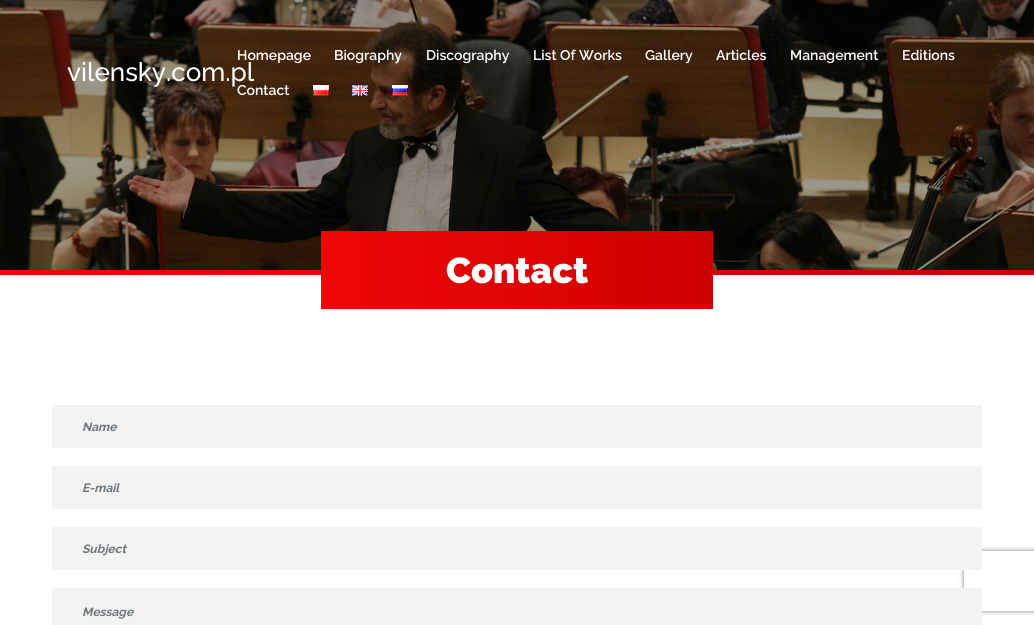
import math
import cairo


def round_path(ctx, x, y, w, h, r):
	ctx.new_sub_path()
	for i, (u, v) in enumerate([(x + w - r, y + h - r), (x + r, y + h - r), (x + r, y + r), (x + w - r, y + r)]):
		ctx.arc(u, v, r, i * math.pi / 2, (i + 1) * math.pi / 2)
	ctx.close_path()

def blur_box(ctx, x, y, w, h, r, blur, alpha):
	ctx.push_group_with_content(cairo.CONTENT_ALPHA)
	ctx.set_operator(cairo.OPERATOR_SOURCE)
	for i in range(15, -16, -2):
		e = blur * i / 6
		if min(w, h) + 2 * e > 0:
			ctx.set_source_rgba(0, 0, 0, alpha * math.erfc((i - 1) / 8.5) / 2)
			round_path(ctx, x - e, y - e, w + 2 * e, h + 2 * e, max(0, min(r + e + blur * .6, min(w, h) / 2 + e)))
			ctx.fill()
	ctx.mask(ctx.pop_group())

def paste(ctx, path, x, y, w, h):
	ctx.save()
	ctx.set_source_surface(cairo.ImageSurface.create_from_png(path), x, y)
	ctx.rectangle(x, y, w, h)
	ctx.fill()
	ctx.restore()

def draw(ctx):
	ctx.set_source_rgb(1, 1, 1)
	ctx.paint()
	paste(ctx, 'media/4.png', 0, 0, 1034, 270)
	ctx.select_font_face('Raleway Medium')
	ctx.set_font_size(26)
	ctx.set_source_rgb(1, 1, 1)
	ctx.move_to(67, 81)
	ctx.show_text('vilensky.com.pl')
	ctx.select_font_face('Raleway SemiBold')
	ctx.set_font_size(14)
	for x, y, s in [
		(237, 60, 'Homepage'),
		(334, 60, 'Biography'),
		(426, 60, 'Discography'),
		(533, 60, 'List Of Works'),
		(645, 60, 'Gallery'),
		(716, 60, 'Articles'),
		(790, 60, 'Management'),
		(902, 60, 'Editions'),
		(237, 95, 'Contact'),
	]:
		ctx.move_to(x, y)
		ctx.show_text(s)
	paste(ctx, 'media/1.png', 313, 85, 16, 11)
	paste(ctx, 'media/2.png', 352, 85, 16, 11)
	paste(ctx, 'media/3.png', 392, 85, 16, 11)
	gradient = cairo.LinearGradient(0, 273, 1034, 272)
	gradient.add_color_stop_rgba(0, 0.937, 0.027, 0.027, 1)
	gradient.add_color_stop_rgba(1, 0.808, 0, 0, 1)
	ctx.set_source(gradient)
	ctx.rectangle(0, 270, 1034, 5)
	ctx.fill()
	gradient = cairo.LinearGradient(321, 270, 713, 270)
	gradient.add_color_stop_rgba(0, 0.937, 0.027, 0.027, 1)
	gradient.add_color_stop_rgba(1, 0.808, 0, 0, 1)
	ctx.set_source(gradient)
	ctx.rectangle(321, 231, 392, 78)
	ctx.fill()
	ctx.select_font_face('Raleway Black')
	ctx.set_font_size(36)
	ctx.set_source_rgb(1, 1, 1)
	ctx.move_to(446, 283)
	ctx.show_text('Contact')
	ctx.set_source_rgb(0.953, 0.953, 0.953)
	ctx.rectangle(52, 405, 930, 43)
	ctx.fill()
	ctx.select_font_face('Raleway', cairo.FONT_SLANT_ITALIC, cairo.FONT_WEIGHT_BOLD)
	ctx.set_font_size(12)
	ctx.set_source_rgb(0.424, 0.459, 0.49)
	ctx.move_to(82, 431)
	ctx.show_text('Name')
	ctx.set_source_rgb(0.953, 0.953, 0.953)
	ctx.rectangle(52, 466, 930, 43)
	ctx.fill()
	ctx.set_source_rgb(0.424, 0.459, 0.49)
	ctx.move_to(82, 492)
	ctx.show_text('E-mail')
	ctx.save()
	ctx.set_fill_rule(cairo.FILL_RULE_EVEN_ODD)
	ctx.new_path()
	ctx.move_to(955, 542)
	ctx.line_to(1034, 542)
	ctx.line_to(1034, 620)
	ctx.line_to(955, 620)
	ctx.close_path()
	ctx.move_to(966, 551)
	ctx.line_to(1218, 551)
	ctx.curve_to(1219, 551, 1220, 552, 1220, 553)
	ctx.line_to(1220, 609)
	ctx.curve_to(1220, 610, 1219, 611, 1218, 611)
	ctx.line_to(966, 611)
	ctx.curve_to(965, 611, 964, 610, 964, 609)
	ctx.line_to(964, 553)
	ctx.curve_to(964, 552, 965, 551, 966, 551)
	ctx.close_path()
	ctx.clip()
	ctx.set_source_rgb(0.502, 0.502, 0.502)
	blur_box(ctx, 964, 551, 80, 60, 2, 2.5, 1)
	ctx.restore()
	ctx.set_source_rgb(0.953, 0.953, 0.953)
	ctx.rectangle(52, 527, 930, 43)
	ctx.fill()
	ctx.set_source_rgb(0.424, 0.459, 0.49)
	ctx.move_to(82, 553)
	ctx.show_text('Subject')
	ctx.set_source_rgb(0.953, 0.953, 0.953)
	ctx.rectangle(52, 588, 930, 37)
	ctx.fill()
	ctx.set_source_rgb(0.424, 0.459, 0.49)
	ctx.move_to(82, 616)
	ctx.show_text('Message')


surface = cairo.ImageSurface(cairo.FORMAT_RGB24, 1034, 625)
ctx = cairo.Context(surface)
options = cairo.FontOptions()
options.set_hint_metrics(cairo.HINT_METRICS_OFF)
options.set_hint_style(cairo.HINT_STYLE_NONE)
ctx.set_font_options(options)
ctx.set_miter_limit(4)
draw(ctx)
surface.write_to_png('image.png')
